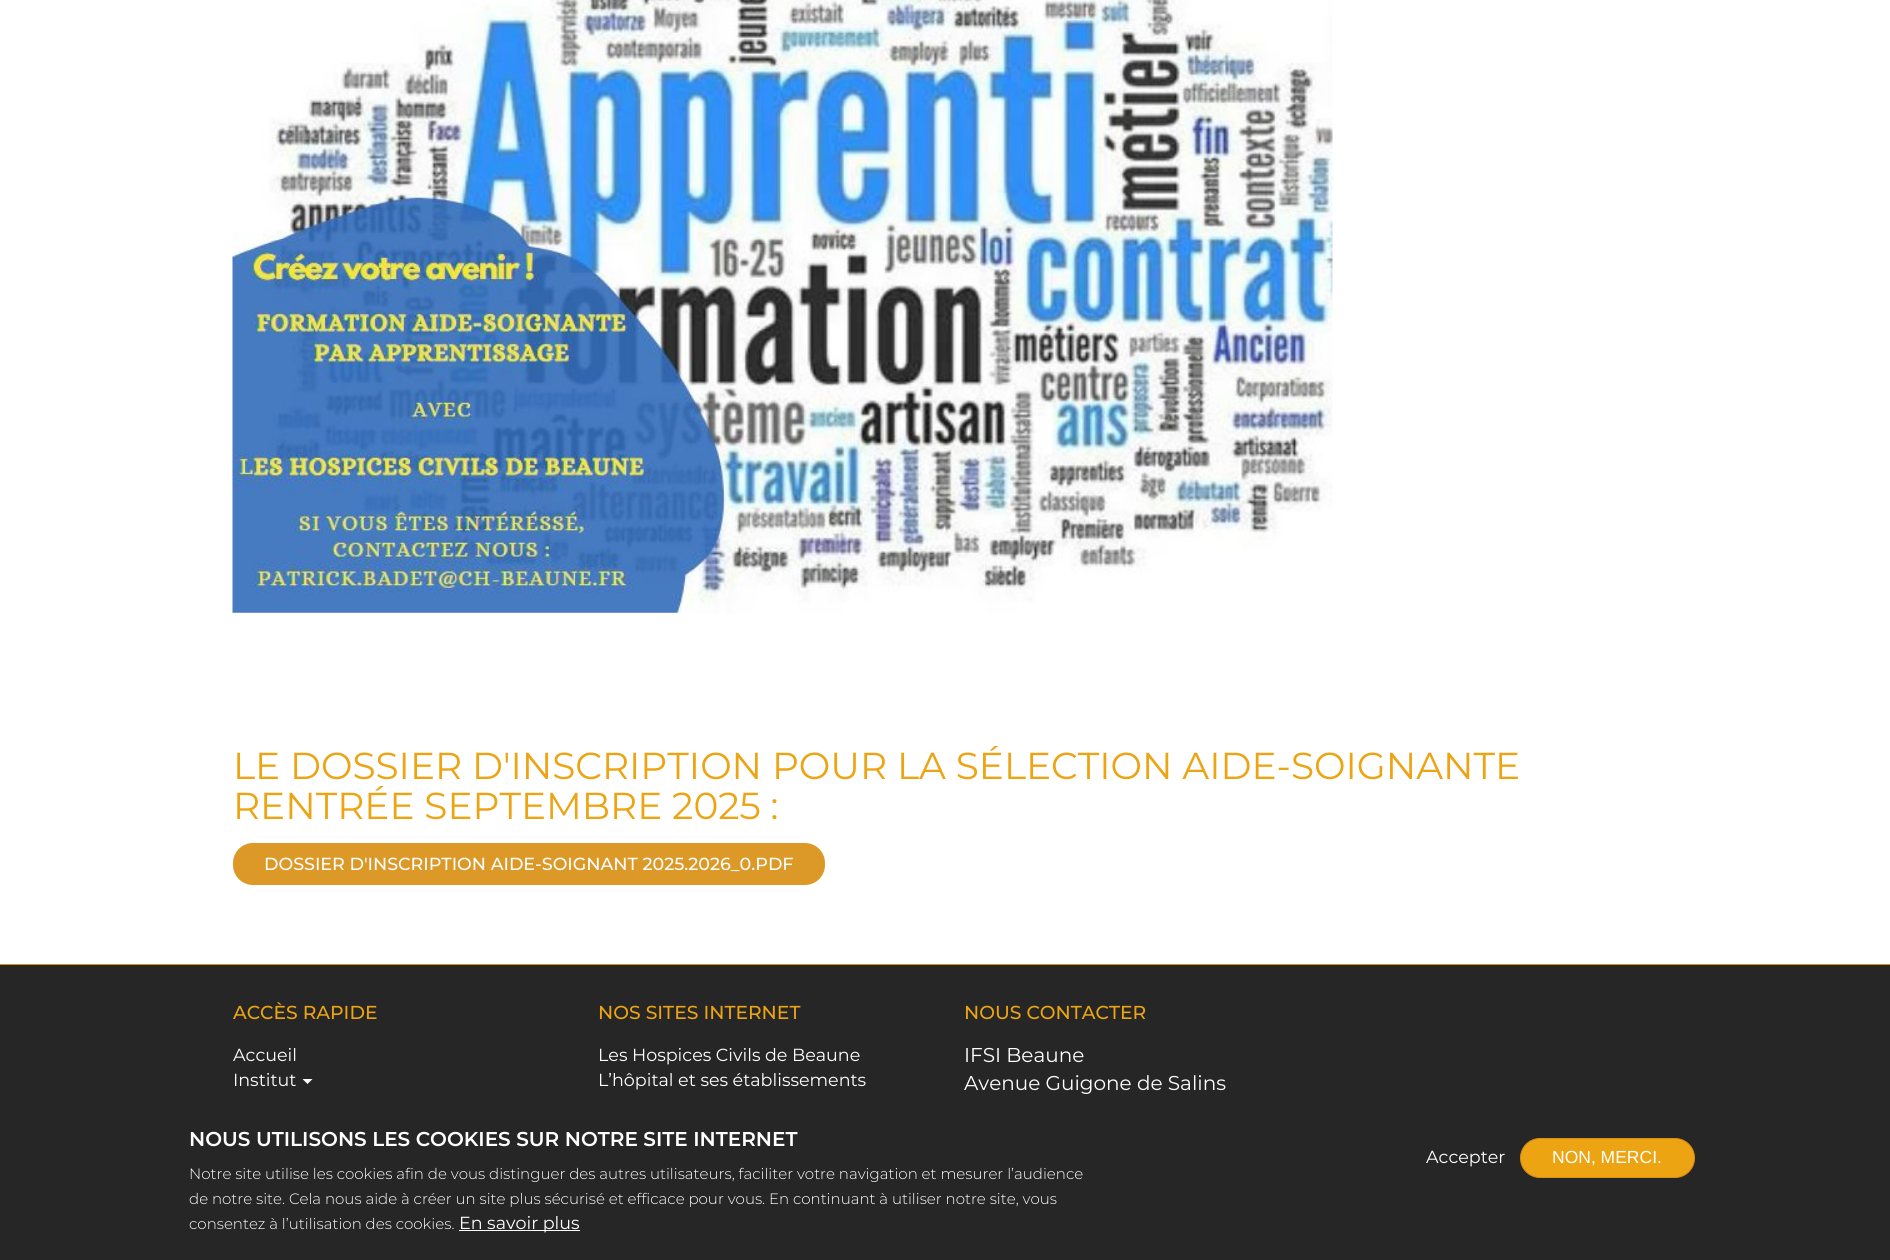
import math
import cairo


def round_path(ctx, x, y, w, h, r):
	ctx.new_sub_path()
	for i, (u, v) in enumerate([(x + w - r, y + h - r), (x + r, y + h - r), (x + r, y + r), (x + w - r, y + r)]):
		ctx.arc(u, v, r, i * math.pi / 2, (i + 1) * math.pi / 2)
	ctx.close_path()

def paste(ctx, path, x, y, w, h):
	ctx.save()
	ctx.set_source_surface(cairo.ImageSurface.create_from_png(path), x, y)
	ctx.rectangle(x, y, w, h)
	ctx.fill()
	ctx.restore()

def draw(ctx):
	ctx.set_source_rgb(1, 1, 1)
	ctx.paint()
	paste(ctx, 'media/1.png', 232, 0, 1101, 613)
	ctx.select_font_face('Montserrat')
	ctx.set_font_size(37.5)
	ctx.set_source_rgb(0.925, 0.643, 0.078)
	ctx.move_to(233, 779)
	ctx.show_text('LE DOSSIER D\'INSCRIPTION POUR LA SÉLECTION AIDE-SOIGNANTE')
	ctx.move_to(233, 819)
	ctx.show_text('RENTRÉE SEPTEMBRE 2025 :')
	ctx.set_source_rgb(0.867, 0.6, 0.153)
	round_path(ctx, 233, 843, 592, 42, 20)
	ctx.fill()
	ctx.select_font_face('Montserrat Medium')
	ctx.set_font_size(17.5)
	ctx.set_source_rgb(1, 1, 1)
	ctx.move_to(264, 870)
	ctx.show_text('DOSSIER D\'INSCRIPTION AIDE-SOIGNANT 2025.2026_0.PDF')
	ctx.set_source_rgb(0.149, 0.149, 0.149)
	ctx.rectangle(0, 965, 1890, 295)
	ctx.fill()
	ctx.set_source_rgb(0.851, 0.557, 0.059)
	ctx.rectangle(0, 964, 1890, 1)
	ctx.fill()
	ctx.set_font_size(18.75)
	ctx.set_source_rgb(0.925, 0.643, 0.078)
	ctx.move_to(233, 1019)
	ctx.show_text('ACCÈS RAPIDE')
	ctx.select_font_face('Montserrat')
	ctx.set_font_size(17.5)
	ctx.set_source_rgb(1, 1, 1)
	ctx.move_to(233, 1061)
	ctx.show_text('Accueil')
	ctx.move_to(233, 1086)
	ctx.show_text('Institut')
	ctx.new_path()
	ctx.move_to(302.5, 1079)
	ctx.line_to(312.5, 1079)
	ctx.line_to(307.5, 1084)
	ctx.close_path()
	ctx.fill()
	ctx.select_font_face('Montserrat Medium')
	ctx.set_font_size(18.75)
	ctx.set_source_rgb(0.925, 0.643, 0.078)
	ctx.move_to(598, 1019)
	ctx.show_text('NOS SITES INTERNET')
	ctx.select_font_face('Montserrat')
	ctx.set_font_size(17.5)
	ctx.set_source_rgb(1, 1, 1)
	ctx.move_to(598, 1061)
	ctx.show_text('Les Hospices Civils de Beaune')
	ctx.move_to(598, 1086)
	ctx.show_text('L’hôpital et ses établissements')
	ctx.select_font_face('Montserrat Medium')
	ctx.set_font_size(18.75)
	ctx.set_source_rgb(0.925, 0.643, 0.078)
	ctx.move_to(964, 1019)
	ctx.show_text('NOUS CONTACTER')
	ctx.select_font_face('Montserrat')
	ctx.set_font_size(20)
	ctx.set_source_rgb(1, 1, 1)
	ctx.move_to(964, 1062)
	ctx.show_text('IFSI Beaune')
	ctx.move_to(964, 1090)
	ctx.show_text('Avenue Guigone de Salins')
	ctx.select_font_face('Montserrat SemiBold')
	ctx.move_to(189, 1146)
	ctx.show_text('NOUS UTILISONS LES COOKIES SUR NOTRE SITE INTERNET')
	ctx.select_font_face('Montserrat Light')
	ctx.set_font_size(15)
	for x, y, s in [
		(189, 1179, 'Notre site utilise les cookies afin de vous distinguer des autres utilisateurs, faciliter votre navigation et mesurer l’audience'),
		(189, 1204, 'de notre site. Cela nous aide à créer un site plus sécurisé et efficace pour vous. En continuant à utiliser notre site, vous'),
		(189, 1229, 'consentez à l’utilisation des cookies.'),
	]:
		ctx.move_to(x, y)
		ctx.show_text(s)
	ctx.rectangle(459, 1230, 121, 1)
	ctx.fill()
	ctx.select_font_face('Montserrat')
	ctx.set_font_size(17.5)
	ctx.move_to(459, 1229)
	ctx.show_text('En savoir plus')
	ctx.move_to(1426, 1163)
	ctx.show_text('Accepter')
	ctx.set_source_rgb(0.925, 0.643, 0.078)
	round_path(ctx, 1520.5, 1138.5, 174, 39, 19.5)
	ctx.fill_preserve()
	ctx.set_source_rgb(0.851, 0.557, 0.059)
	ctx.set_line_width(1)
	ctx.stroke()
	ctx.select_font_face('Liberation Sans')
	ctx.set_source_rgb(1, 1, 1)
	ctx.move_to(1552, 1163)
	ctx.show_text('NON, MERCI.')


surface = cairo.ImageSurface(cairo.FORMAT_RGB24, 1890, 1260)
ctx = cairo.Context(surface)
options = cairo.FontOptions()
options.set_hint_metrics(cairo.HINT_METRICS_OFF)
options.set_hint_style(cairo.HINT_STYLE_NONE)
ctx.set_font_options(options)
ctx.set_miter_limit(4)
draw(ctx)
surface.write_to_png('image.png')
